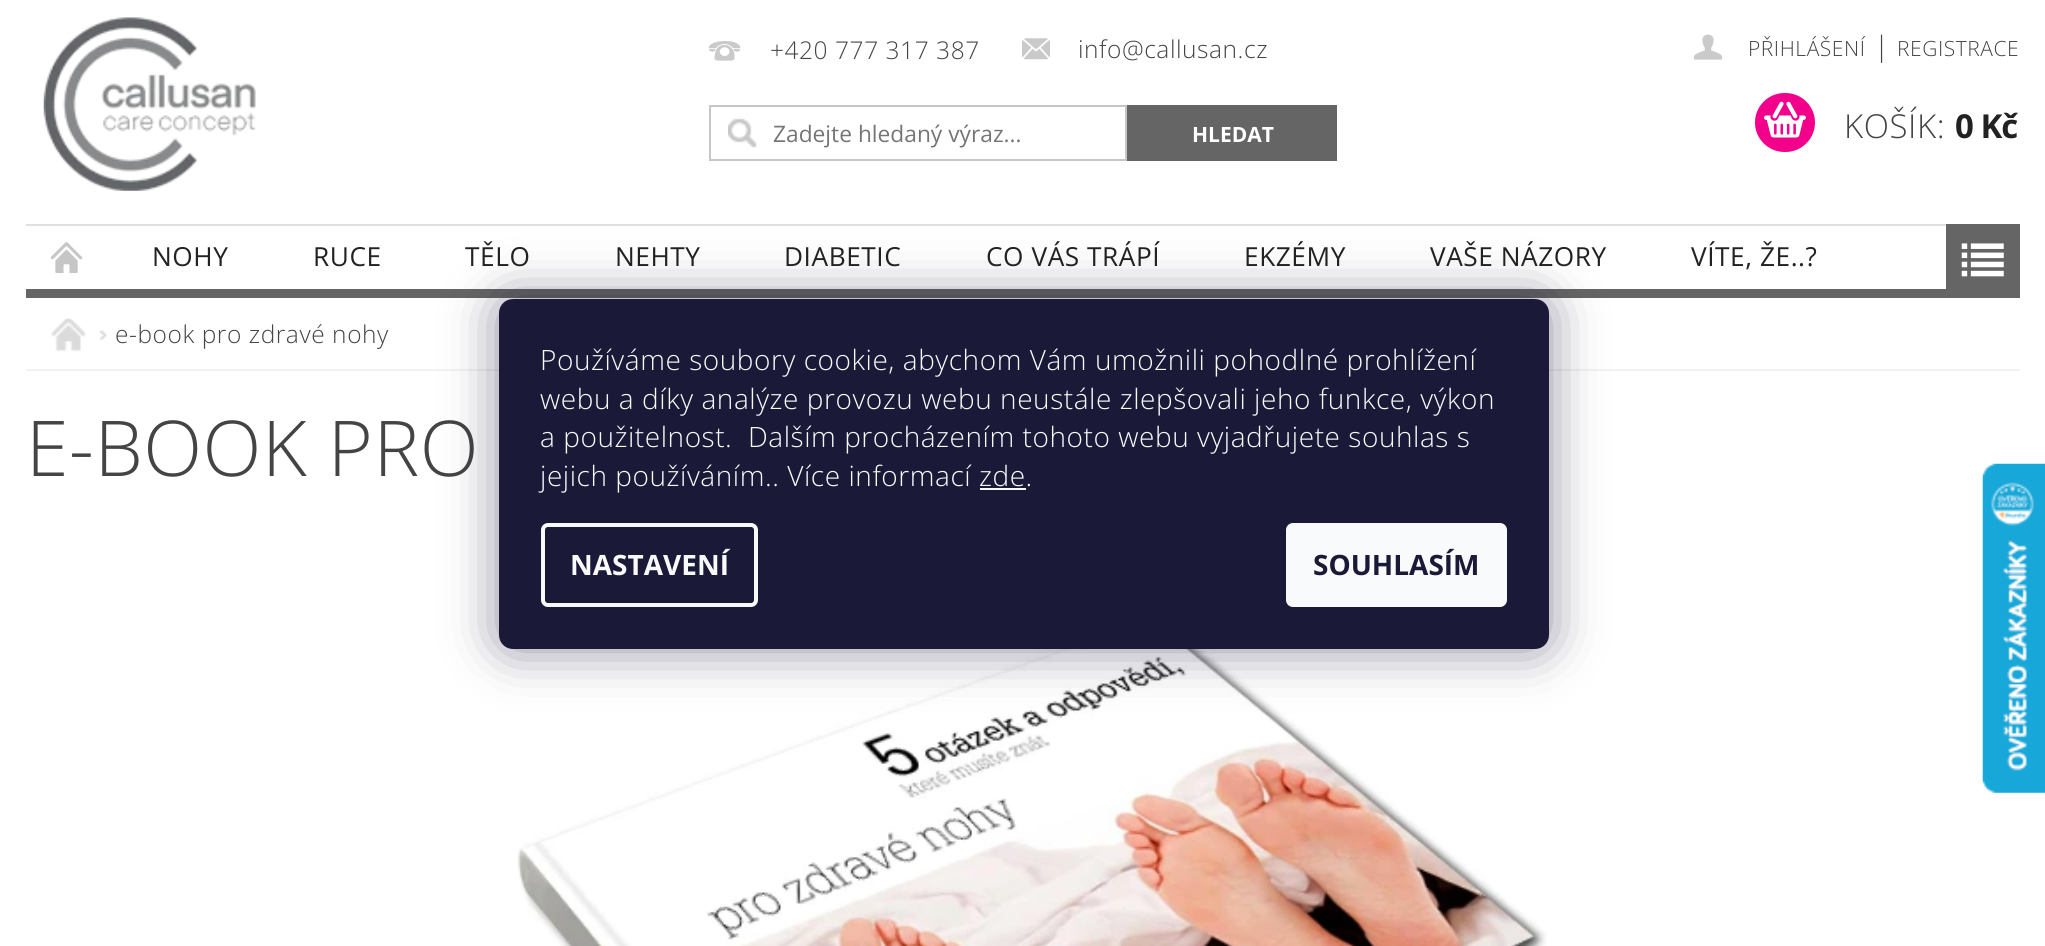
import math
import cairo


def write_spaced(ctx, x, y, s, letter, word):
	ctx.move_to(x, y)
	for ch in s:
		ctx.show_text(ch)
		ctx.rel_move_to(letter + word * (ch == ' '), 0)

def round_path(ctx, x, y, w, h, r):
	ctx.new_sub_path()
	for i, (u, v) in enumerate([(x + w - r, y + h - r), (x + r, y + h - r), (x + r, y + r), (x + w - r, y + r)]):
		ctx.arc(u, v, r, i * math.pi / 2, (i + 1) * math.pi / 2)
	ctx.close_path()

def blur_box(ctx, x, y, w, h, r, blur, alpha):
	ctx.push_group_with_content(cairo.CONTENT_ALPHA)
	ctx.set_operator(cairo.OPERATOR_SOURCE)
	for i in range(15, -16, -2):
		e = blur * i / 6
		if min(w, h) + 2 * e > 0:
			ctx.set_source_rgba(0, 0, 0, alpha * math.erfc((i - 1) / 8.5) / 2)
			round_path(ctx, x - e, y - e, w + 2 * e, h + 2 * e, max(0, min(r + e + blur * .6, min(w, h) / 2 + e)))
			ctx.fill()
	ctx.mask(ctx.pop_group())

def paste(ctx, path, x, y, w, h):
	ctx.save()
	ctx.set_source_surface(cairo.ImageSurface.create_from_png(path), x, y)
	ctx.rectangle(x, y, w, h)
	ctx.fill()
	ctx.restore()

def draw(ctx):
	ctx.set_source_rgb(1, 1, 1)
	ctx.paint()
	ctx.set_source_rgb(0.396, 0.396, 0.396)
	ctx.rectangle(26, 289, 1920, 9)
	ctx.fill()
	paste(ctx, 'media/1.png', 43, 17, 213, 174)
	paste(ctx, 'media/2.png', 708, 41, 33, 20)
	ctx.select_font_face('Open Sans Light')
	ctx.set_font_size(24.5)
	ctx.set_source_rgb(0.267, 0.267, 0.267)
	write_spaced(ctx, 770, 59, '+420 777 317 387', 0.55, 0)
	paste(ctx, 'media/3.png', 1022, 38, 28, 22)
	write_spaced(ctx, 1078, 58, 'info@callusan.cz', 0.55, 0)
	paste(ctx, 'media/4.png', 728, 118, 29, 30)
	ctx.rectangle(710, 106, 416, 54)
	ctx.set_source_rgb(0.776, 0.776, 0.776)
	ctx.stroke()
	ctx.select_font_face('Open Sans')
	ctx.set_font_size(22.75)
	ctx.set_source_rgb(0.459, 0.459, 0.459)
	ctx.move_to(773, 142)
	ctx.show_text('Zadejte hledaný výraz...')
	ctx.set_source_rgb(0.396, 0.396, 0.396)
	ctx.rectangle(1127, 105, 210, 56)
	ctx.fill()
	ctx.select_font_face('Open Sans', cairo.FONT_SLANT_NORMAL, cairo.FONT_WEIGHT_BOLD)
	ctx.set_font_size(21)
	ctx.set_source_rgb(1, 1, 1)
	ctx.move_to(1192, 142)
	ctx.show_text('HLEDAT')
	paste(ctx, 'media/5.png', 1694, 34, 28, 26)
	ctx.select_font_face('Open Sans Light')
	ctx.set_source_rgb(0.267, 0.267, 0.267)
	write_spaced(ctx, 1748, 56, 'PŘIHLÁŠENÍ', 0.55, 0)
	ctx.set_font_size(28)
	write_spaced(ctx, 1874, 56, '|', 0.55, 0)
	ctx.set_font_size(21)
	write_spaced(ctx, 1897, 56, 'REGISTRACE', 0.55, 0)
	ctx.set_source_rgb(0.949, 0, 0.549)
	round_path(ctx, 1755, 93, 60, 59, 29.5)
	ctx.fill()
	paste(ctx, 'media/6.png', 1764, 101, 42, 37)
	ctx.set_font_size(33)
	ctx.set_source_rgb(0.267, 0.267, 0.267)
	write_spaced(ctx, 1844, 138, 'KOŠÍK:', 0.55, 0)
	ctx.select_font_face('Open Sans', cairo.FONT_SLANT_NORMAL, cairo.FONT_WEIGHT_BOLD)
	ctx.set_source_rgb(0.133, 0.133, 0.133)
	write_spaced(ctx, 1955, 138, '0 Kč', -1, 0)
	ctx.set_source_rgb(0.878, 0.878, 0.878)
	ctx.rectangle(26, 224, 1920, 2)
	ctx.fill()
	paste(ctx, 'media/7.png', 50, 242, 33, 31)
	ctx.select_font_face('Open Sans')
	ctx.set_font_size(26.25)
	ctx.set_source_rgb(0.133, 0.133, 0.133)
	for x, y, s in [
		(152, 266, 'NOHY'),
		(313, 266, 'RUCE'),
		(465, 266, 'TĚLO'),
		(615, 266, 'NEHTY'),
		(784, 266, 'DIABETIC'),
		(986, 266, 'CO VÁS TRÁPÍ'),
		(1244, 266, 'EKZÉMY'),
		(1430, 266, 'VAŠE NÁZORY'),
		(1691, 266, 'VÍTE, ŽE..?'),
	]:
		write_spaced(ctx, x, y, s, 0.55, 0)
	ctx.set_source_rgb(0.396, 0.396, 0.396)
	ctx.rectangle(1946, 224, 74, 74)
	ctx.fill()
	paste(ctx, 'media/8.png', 1961, 243, 43, 34)
	ctx.set_source_rgb(0.949, 0.949, 0.949)
	ctx.rectangle(26, 369, 1994, 2)
	ctx.fill()
	paste(ctx, 'media/9.png', 51, 318, 35, 34)
	paste(ctx, 'media/10.png', 99, 330, 8, 10)
	ctx.select_font_face('Open Sans Light')
	ctx.set_font_size(24.5)
	ctx.set_source_rgb(0.267, 0.267, 0.267)
	write_spaced(ctx, 115, 343, 'e-book pro zdravé nohy', 0.55, 0)
	ctx.set_font_size(77)
	write_spaced(ctx, 26, 476, 'E-BOOK PRO', 0.55, 0)
	paste(ctx, 'media/11.png', 517, 642, 1030, 304)
	ctx.set_source_rgb(0.106, 0.098, 0.224)
	blur_box(ctx, 499, 299, 1050, 350, 14, 26, 0.5)
	ctx.set_source_rgb(0.102, 0.098, 0.216)
	round_path(ctx, 499, 299, 1050, 350, 14)
	ctx.fill()
	ctx.set_font_size(28)
	ctx.set_source_rgb(0.973, 0.98, 0.984)
	for x, y, s in [
		(540, 370, 'Používáme soubory cookie, abychom Vám umožnili pohodlné prohlížení'),
		(540, 409, 'webu a díky analýze provozu webu neustále zlepšovali jeho funkce, výkon'),
		(540, 447, 'a použitelnost.  Dalším procházením tohoto webu vyjadřujete souhlas s'),
		(540, 486, 'jejich používáním.. Více informací zde.'),
	]:
		write_spaced(ctx, x, y, s, 0.55, 0)
	ctx.rectangle(980, 488, 46, 2)
	ctx.fill()
	round_path(ctx, 543, 525, 213, 80, 5)
	ctx.set_line_width(4)
	ctx.stroke()
	ctx.select_font_face('Open Sans', cairo.FONT_SLANT_NORMAL, cairo.FONT_WEIGHT_BOLD)
	ctx.move_to(570, 575)
	ctx.show_text('NASTAVENÍ')
	round_path(ctx, 1286, 523, 221, 84, 7)
	ctx.fill()
	ctx.set_source_rgb(0.102, 0.098, 0.216)
	ctx.move_to(1313, 575)
	ctx.show_text('SOUHLASÍM')
	paste(ctx, 'media/12.png', 1982, 463, 63, 330)


surface = cairo.ImageSurface(cairo.FORMAT_RGB24, 2045, 946)
ctx = cairo.Context(surface)
options = cairo.FontOptions()
options.set_hint_metrics(cairo.HINT_METRICS_OFF)
options.set_hint_style(cairo.HINT_STYLE_NONE)
ctx.set_font_options(options)
ctx.set_miter_limit(4)
draw(ctx)
surface.write_to_png('image.png')
